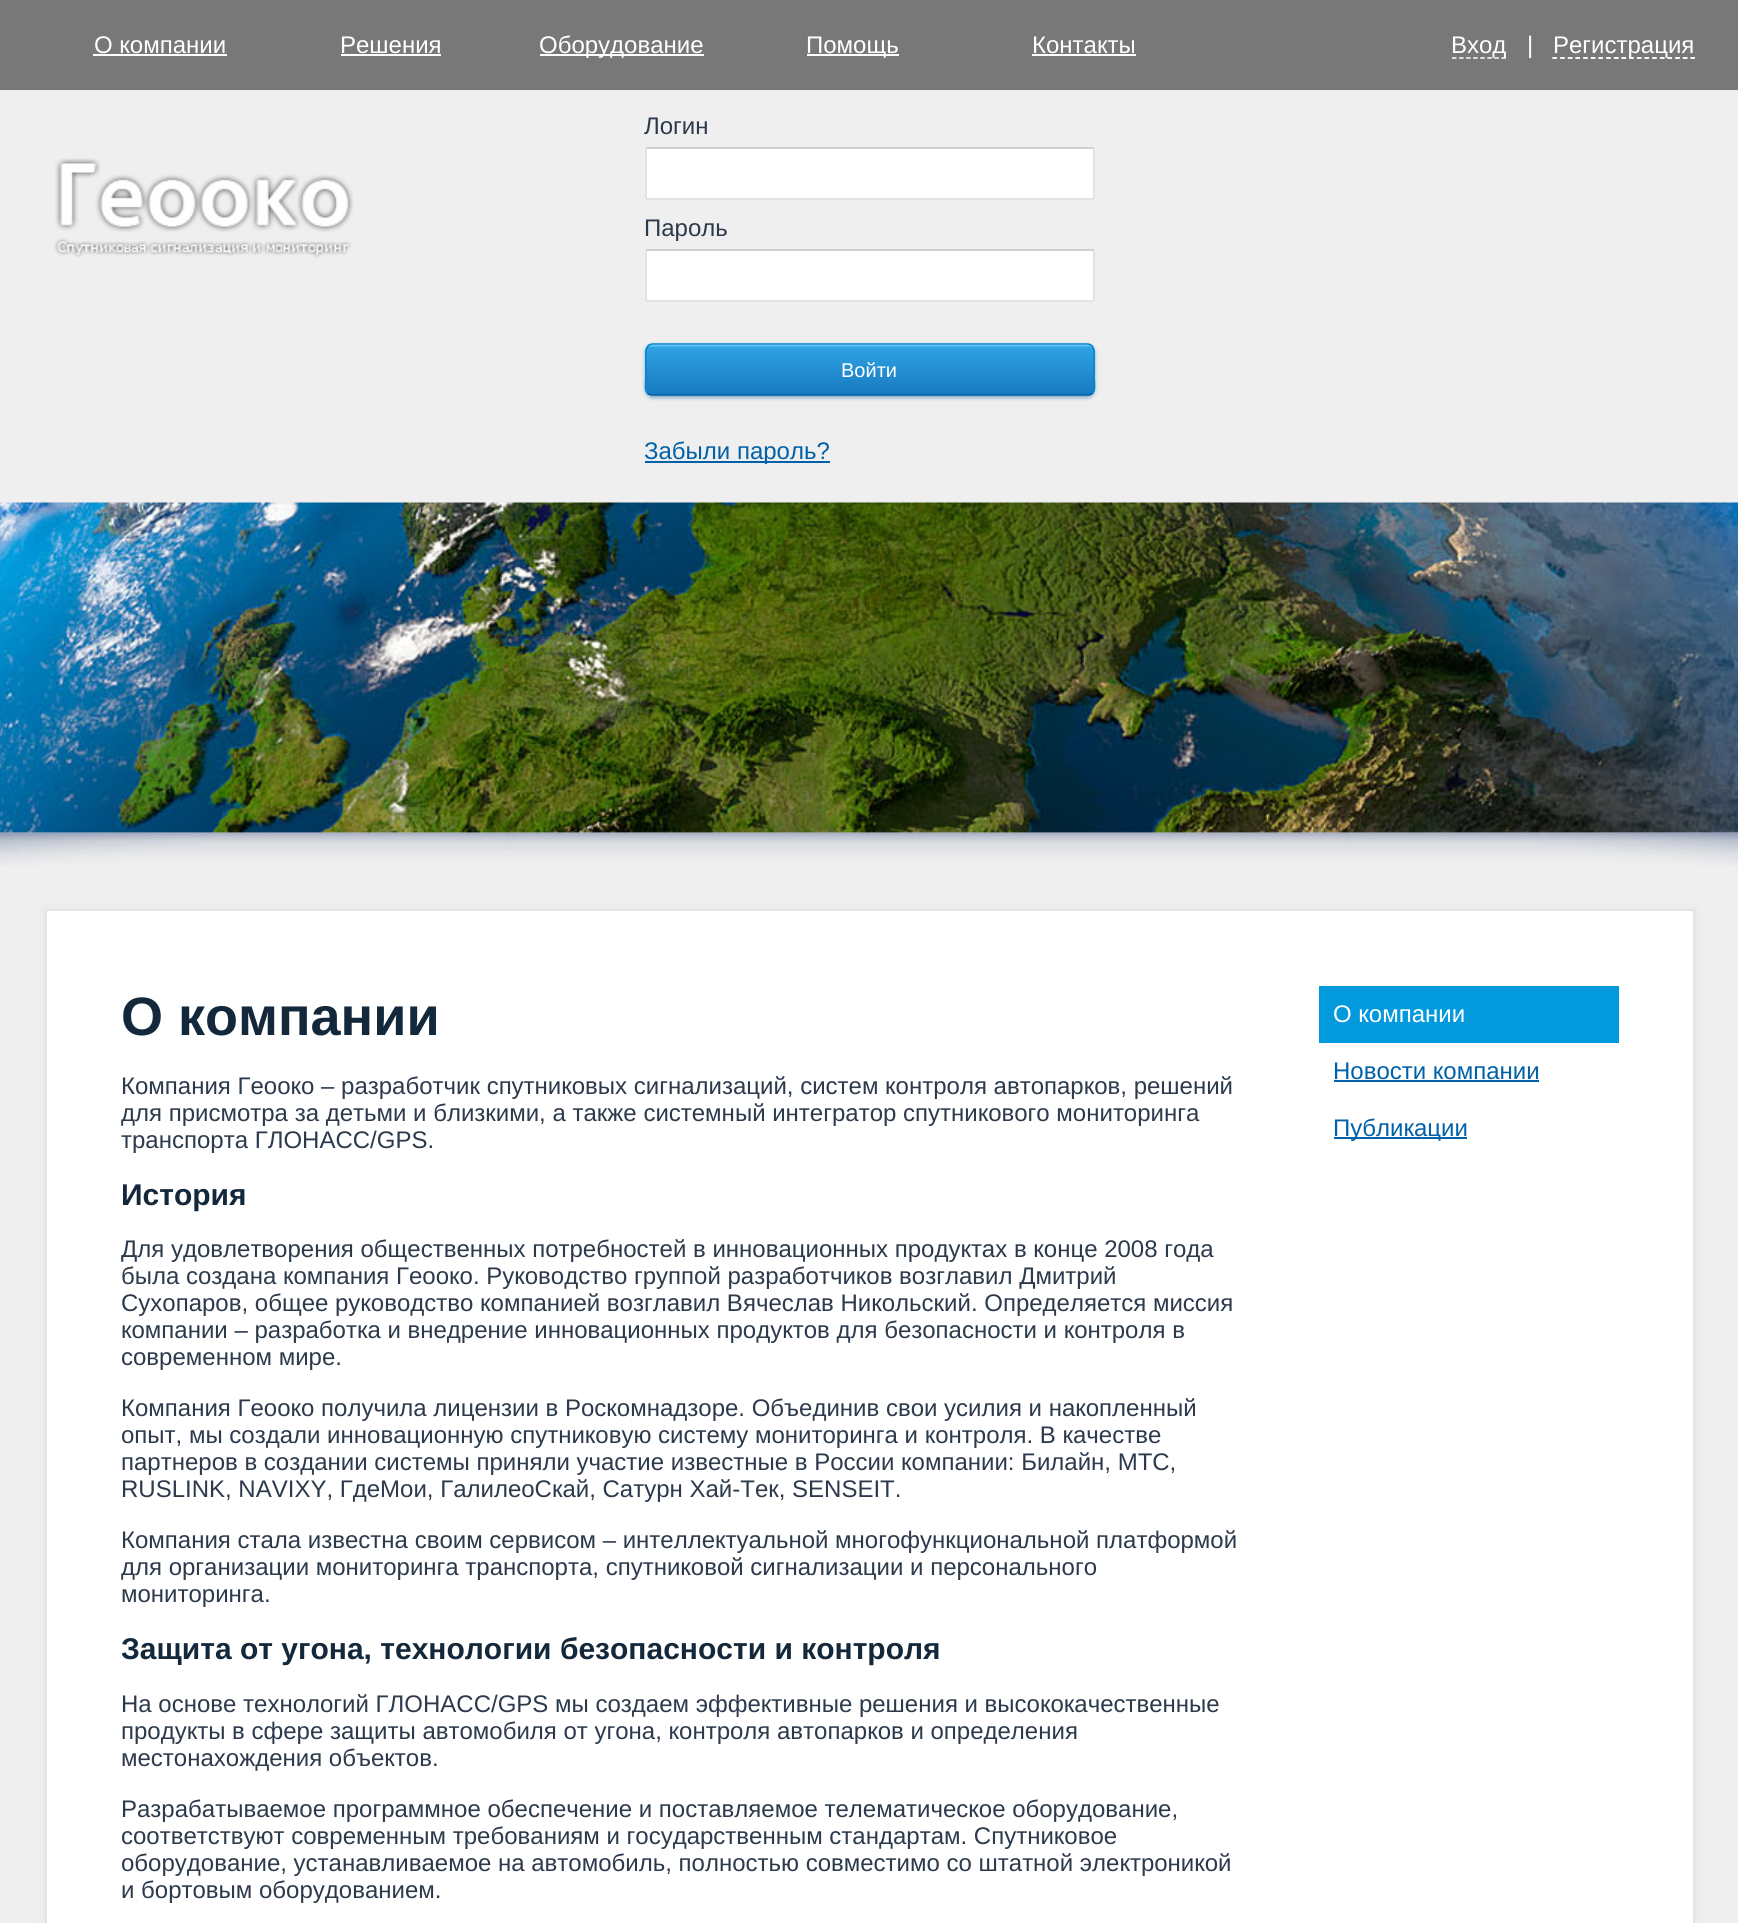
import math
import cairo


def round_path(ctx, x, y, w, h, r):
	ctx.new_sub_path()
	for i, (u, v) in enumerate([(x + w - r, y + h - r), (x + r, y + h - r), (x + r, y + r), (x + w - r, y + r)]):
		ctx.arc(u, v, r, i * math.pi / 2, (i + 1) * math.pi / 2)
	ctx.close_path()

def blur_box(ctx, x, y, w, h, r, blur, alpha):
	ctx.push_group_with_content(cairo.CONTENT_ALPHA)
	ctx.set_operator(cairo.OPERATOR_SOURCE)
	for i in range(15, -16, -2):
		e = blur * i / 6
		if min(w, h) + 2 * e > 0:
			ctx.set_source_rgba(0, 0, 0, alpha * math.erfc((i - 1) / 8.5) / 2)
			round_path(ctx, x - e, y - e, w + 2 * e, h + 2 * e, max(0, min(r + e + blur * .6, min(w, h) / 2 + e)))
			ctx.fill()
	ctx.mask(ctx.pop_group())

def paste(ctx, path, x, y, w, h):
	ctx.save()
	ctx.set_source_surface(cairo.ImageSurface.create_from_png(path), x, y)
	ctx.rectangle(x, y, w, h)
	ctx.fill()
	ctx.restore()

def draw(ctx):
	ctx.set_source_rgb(0.937, 0.937, 0.937)
	ctx.paint()
	ctx.set_source_rgb(0.471, 0.471, 0.471)
	ctx.rectangle(0, 0, 1738, 90)
	ctx.fill()
	ctx.select_font_face('Liberation Sans')
	ctx.set_font_size(24)
	ctx.set_source_rgb(1, 1, 1)
	ctx.move_to(94, 53)
	ctx.show_text('О компании')
	ctx.rectangle(93, 54, 134, 2)
	ctx.fill()
	ctx.move_to(340, 53)
	ctx.show_text('Решения')
	ctx.rectangle(341, 54, 100, 2)
	ctx.fill()
	ctx.rectangle(540, 54, 164, 2)
	ctx.fill()
	ctx.move_to(539, 53)
	ctx.show_text('Оборудование')
	ctx.rectangle(807, 54, 92, 2)
	ctx.fill()
	ctx.move_to(806, 53)
	ctx.show_text('Помощь')
	ctx.move_to(1032, 53)
	ctx.show_text('Контакты')
	ctx.rectangle(1032, 54, 104, 2)
	ctx.fill()
	ctx.new_path()
	ctx.move_to(1452, 58)
	ctx.line_to(1506, 58)
	ctx.move_to(1452, 58)
	ctx.line_to(1506, 58)
	ctx.set_line_width(1.5)
	ctx.set_dash([4.5, 2.56])
	ctx.stroke()
	ctx.move_to(1451, 53)
	ctx.show_text('Вход')
	ctx.move_to(1527, 53)
	ctx.show_text('|')
	ctx.new_path()
	ctx.move_to(1552.5, 58)
	ctx.line_to(1695, 58)
	ctx.set_dash([4.5, 3.17])
	ctx.stroke()
	ctx.new_path()
	ctx.move_to(1552.5, 58)
	ctx.line_to(1695, 58)
	ctx.stroke()
	ctx.move_to(1553, 53)
	ctx.show_text('Регистрация')
	paste(ctx, 'media/1.png', 54, 158, 299, 100)
	ctx.set_source_rgb(0.173, 0.227, 0.298)
	ctx.move_to(644, 134)
	ctx.show_text('Логин')
	ctx.set_source_rgb(1, 1, 1)
	round_path(ctx, 645, 147, 450, 53, 1.5)
	ctx.fill()
	ctx.set_source_rgb(0.816, 0.816, 0.816)
	ctx.rectangle(646, 147, 448, 2)
	ctx.fill()
	ctx.new_path()
	ctx.move_to(1094, 148)
	ctx.line_to(1094, 198)
	ctx.line_to(1093.5, 199)
	ctx.line_to(646.5, 199)
	ctx.line_to(646, 198)
	ctx.line_to(646, 148)
	ctx.set_source_rgb(0.851, 0.851, 0.851)
	ctx.set_dash([])
	ctx.stroke()
	ctx.set_source_rgb(0.173, 0.227, 0.298)
	ctx.move_to(644, 236)
	ctx.show_text('Пароль')
	ctx.set_source_rgb(1, 1, 1)
	round_path(ctx, 645, 249, 450, 53, 1.5)
	ctx.fill()
	ctx.set_source_rgb(0.816, 0.816, 0.816)
	ctx.rectangle(646, 249, 448, 2)
	ctx.fill()
	ctx.new_path()
	ctx.move_to(1094, 250)
	ctx.line_to(1094, 300)
	ctx.line_to(1093.5, 301)
	ctx.line_to(646.5, 301)
	ctx.line_to(646, 300)
	ctx.line_to(646, 250)
	ctx.set_source_rgb(0.851, 0.851, 0.851)
	ctx.stroke()
	ctx.set_source_rgb(0.082, 0.416, 0.596)
	blur_box(ctx, 645, 345, 450, 53, 8, 2, 0.5)
	ctx.save()
	round_path(ctx, 645, 344, 450, 52, 8)
	ctx.clip()
	gradient = cairo.LinearGradient(870, 345, 870, 395)
	gradient.add_color_stop_rgba(0, 0.431, 0.796, 1, 1)
	gradient.add_color_stop_rgba(0.05, 0.184, 0.635, 0.886, 1)
	gradient.add_color_stop_rgba(1, 0.094, 0.478, 0.757, 1)
	ctx.set_source(gradient)
	ctx.rectangle(645, 345, 450, 50)
	ctx.fill()
	ctx.restore()
	ctx.new_path()
	ctx.move_to(1092.5, 393.5)
	ctx.curve_to(1091, 394.5, 1089.5, 395, 1087.5, 395)
	ctx.line_to(652.5, 395)
	ctx.curve_to(650.5, 395, 649, 394.5, 647.5, 393.5)
	ctx.set_source_rgb(0, 0.38, 0.659)
	ctx.stroke()
	ctx.new_path()
	ctx.move_to(647.5, 393.5)
	ctx.curve_to(644, 389.5, 646, 380, 646, 376)
	ctx.line_to(646, 357)
	ctx.curve_to(646, 352, 645, 344.5, 652.5, 344)
	ctx.line_to(1087.5, 344)
	ctx.curve_to(1095, 344.5, 1094, 352, 1094, 357)
	ctx.line_to(1094, 376)
	ctx.curve_to(1094, 380, 1096, 389.5, 1092.5, 393.5)
	ctx.set_source_rgb(0, 0.525, 0.816)
	ctx.stroke()
	ctx.set_font_size(20)
	ctx.set_source_rgb(1, 1, 1)
	ctx.move_to(841, 377)
	ctx.show_text('Войти')
	ctx.set_source_rgb(0, 0.38, 0.659)
	ctx.rectangle(645, 461, 185, 2)
	ctx.fill()
	ctx.set_font_size(24)
	ctx.move_to(644, 459)
	ctx.show_text('Забыли пароль?')
	paste(ctx, 'media/2.png', 0, 502, 1738, 331)
	paste(ctx, 'media/3.png', 0, 832, 1738, 34)
	ctx.set_source_rgb(0.89, 0.89, 0.89)
	blur_box(ctx, 45, 909, 1650, 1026, 0, 4, 1)
	ctx.set_source_rgb(1, 1, 1)
	ctx.rectangle(46, 910, 1648, 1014)
	ctx.fill_preserve()
	ctx.set_source_rgb(0.89, 0.89, 0.89)
	ctx.set_line_width(2)
	ctx.stroke()
	ctx.select_font_face('Liberation Sans', cairo.FONT_SLANT_NORMAL, cairo.FONT_WEIGHT_BOLD)
	ctx.set_font_size(54)
	ctx.set_source_rgb(0.078, 0.157, 0.231)
	ctx.move_to(121, 1035)
	ctx.show_text('О компании')
	ctx.select_font_face('Liberation Sans')
	ctx.set_font_size(24)
	ctx.set_source_rgb(0.173, 0.227, 0.298)
	for x, y, s in [
		(121, 1094, 'Компания Геооко – разработчик спутниковых сигнализаций, систем контроля автопарков, решений'),
		(121, 1121, 'для присмотра за детьми и близкими, а также системный интегратор спутникового мониторинга'),
		(121, 1148, 'транспорта ГЛОНАСС/GPS.'),
	]:
		ctx.move_to(x, y)
		ctx.show_text(s)
	ctx.select_font_face('Liberation Sans', cairo.FONT_SLANT_NORMAL, cairo.FONT_WEIGHT_BOLD)
	ctx.set_font_size(30)
	ctx.set_source_rgb(0.078, 0.157, 0.231)
	ctx.move_to(121, 1205)
	ctx.show_text('История')
	ctx.select_font_face('Liberation Sans')
	ctx.set_font_size(24)
	ctx.set_source_rgb(0.173, 0.227, 0.298)
	for x, y, s in [
		(121, 1257, 'Для удовлетворения общественных потребностей в инновационных продуктах в конце 2008 года'),
		(121, 1284, 'была создана компания Геооко. Руководство группой разработчиков возглавил Дмитрий'),
		(121, 1311, 'Сухопаров, общее руководство компанией возглавил Вячеслав Никольский. Определяется миссия'),
		(121, 1338, 'компании – разработка и внедрение инновационных продуктов для безопасности и контроля в'),
		(121, 1365, 'современном мире.'),
		(121, 1416, 'Компания Геооко получила лицензии в Роскомнадзоре. Объединив свои усилия и накопленный'),
		(121, 1443, 'опыт, мы создали инновационную спутниковую систему мониторинга и контроля. В качестве'),
		(121, 1470, 'партнеров в создании системы приняли участие известные в России компании: Билайн, МТС,'),
		(121, 1497, 'RUSLINK, NAVIXY, ГдеМои, ГалилеоСкай, Сатурн Хай-Тек, SENSEIT.'),
		(121, 1548, 'Компания стала известна своим сервисом – интеллектуальной многофункциональной платформой'),
		(121, 1575, 'для организации мониторинга транспорта, спутниковой сигнализации и персонального'),
		(121, 1602, 'мониторинга.'),
	]:
		ctx.move_to(x, y)
		ctx.show_text(s)
	ctx.select_font_face('Liberation Sans', cairo.FONT_SLANT_NORMAL, cairo.FONT_WEIGHT_BOLD)
	ctx.set_font_size(30)
	ctx.set_source_rgb(0.078, 0.157, 0.231)
	ctx.move_to(121, 1659)
	ctx.show_text('Защита от угона, технологии безопасности и контроля')
	ctx.select_font_face('Liberation Sans')
	ctx.set_font_size(24)
	ctx.set_source_rgb(0.173, 0.227, 0.298)
	for x, y, s in [
		(121, 1712, 'На основе технологий ГЛОНАСС/GPS мы создаем эффективные решения и высококачественные'),
		(121, 1739, 'продукты в сфере защиты автомобиля от угона, контроля автопарков и определения'),
		(121, 1766, 'местонахождения объектов.'),
		(121, 1817, 'Разрабатываемое программное обеспечение и поставляемое телематическое оборудование,'),
		(121, 1844, 'соответствуют современным требованиям и государственным стандартам. Спутниковое'),
		(121, 1871, 'оборудование, устанавливаемое на автомобиль, полностью совместимо со штатной электроникой'),
		(121, 1898, 'и бортовым оборудованием.'),
	]:
		ctx.move_to(x, y)
		ctx.show_text(s)
	ctx.set_source_rgb(0.008, 0.604, 0.863)
	ctx.rectangle(1319, 986, 300, 57)
	ctx.fill()
	ctx.set_source_rgb(1, 1, 1)
	ctx.move_to(1333, 1022)
	ctx.show_text('О компании')
	ctx.set_source_rgb(0, 0.38, 0.659)
	ctx.move_to(1333, 1079)
	ctx.show_text('Новости компании')
	ctx.rectangle(1334, 1080, 205, 2)
	ctx.fill()
	ctx.rectangle(1334, 1137, 133, 2)
	ctx.fill()
	ctx.move_to(1333, 1136)
	ctx.show_text('Публикации')


surface = cairo.ImageSurface(cairo.FORMAT_RGB24, 1738, 1923)
ctx = cairo.Context(surface)
options = cairo.FontOptions()
options.set_hint_metrics(cairo.HINT_METRICS_OFF)
options.set_hint_style(cairo.HINT_STYLE_NONE)
ctx.set_font_options(options)
ctx.set_miter_limit(4)
draw(ctx)
surface.write_to_png('image.png')
